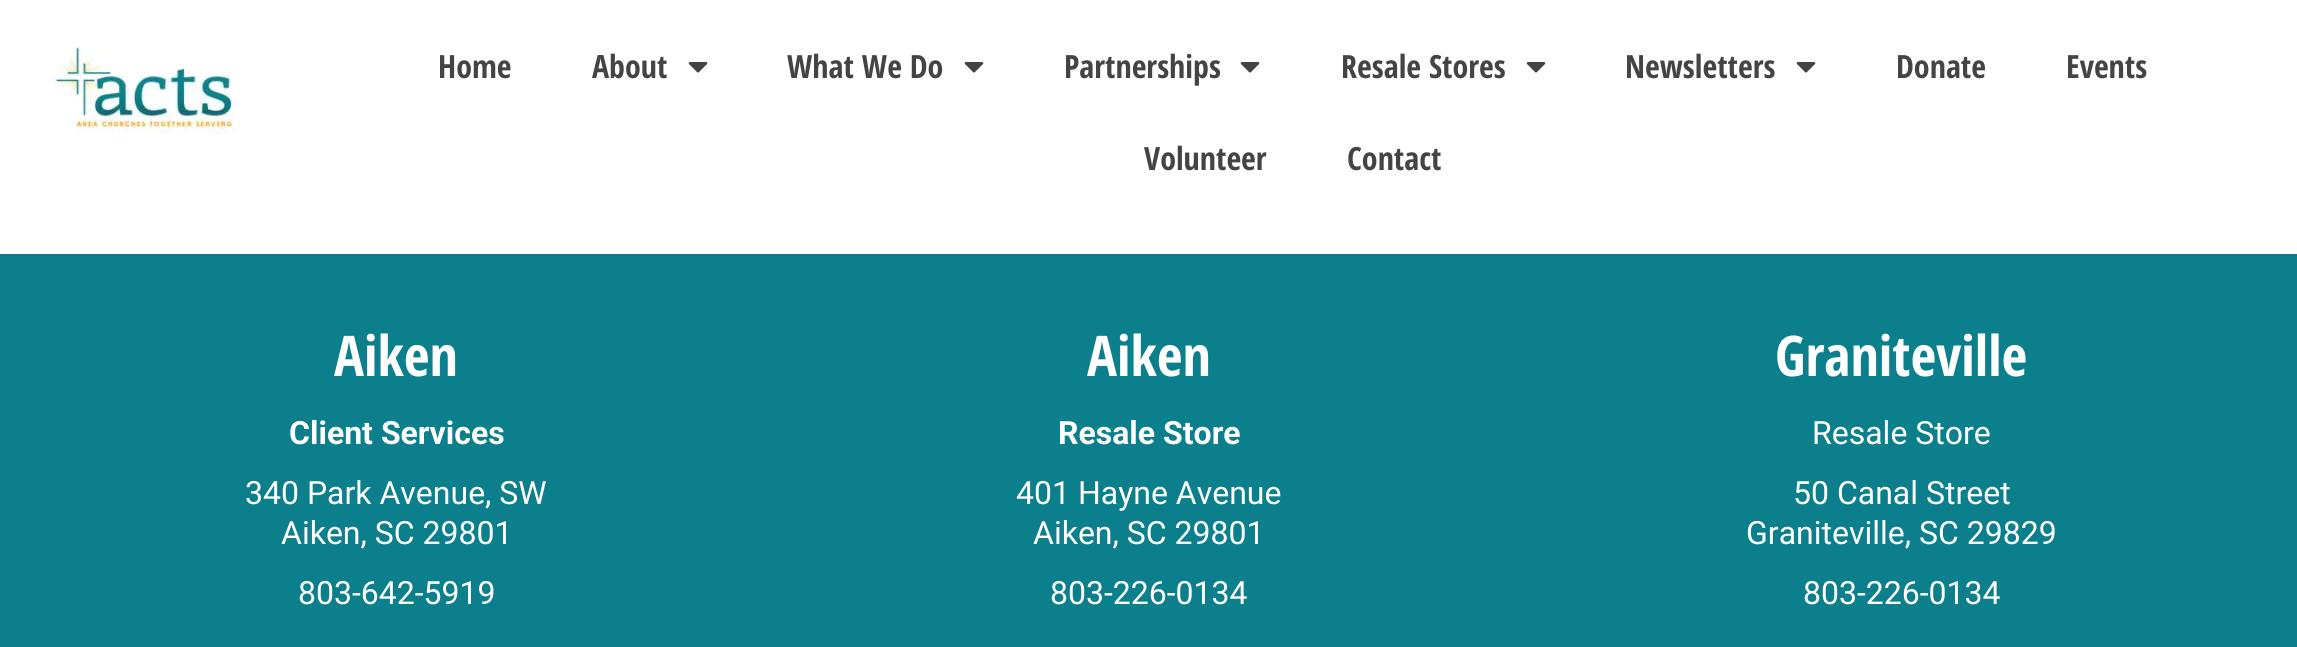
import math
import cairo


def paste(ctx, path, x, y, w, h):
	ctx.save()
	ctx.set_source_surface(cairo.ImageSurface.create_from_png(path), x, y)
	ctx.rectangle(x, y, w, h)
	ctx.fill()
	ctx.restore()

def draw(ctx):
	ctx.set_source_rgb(1, 1, 1)
	ctx.paint()
	paste(ctx, 'media/1.png', 52, 46, 184, 88)
	ctx.select_font_face('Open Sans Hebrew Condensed', cairo.FONT_SLANT_NORMAL, cairo.FONT_WEIGHT_BOLD)
	ctx.set_font_size(32)
	ctx.set_source_rgb(0.267, 0.267, 0.267)
	ctx.move_to(438, 78)
	ctx.show_text('Home')
	ctx.move_to(592, 78)
	ctx.show_text('About')
	paste(ctx, 'media/2.png', 688, 62, 20, 11)
	ctx.move_to(787, 78)
	ctx.show_text('What We Do')
	paste(ctx, 'media/2.png', 964, 62, 20, 11)
	ctx.move_to(1064, 78)
	ctx.show_text('Partnerships')
	paste(ctx, 'media/2.png', 1240, 62, 20, 11)
	ctx.move_to(1341, 78)
	ctx.show_text('Resale Stores')
	paste(ctx, 'media/2.png', 1526, 62, 20, 11)
	ctx.move_to(1625, 78)
	ctx.show_text('Newsletters')
	paste(ctx, 'media/2.png', 1796, 62, 20, 11)
	for x, y, s in [
		(1896, 78, 'Donate'),
		(2066, 78, 'Events'),
		(1144, 170, 'Volunteer'),
		(1347, 170, 'Contact'),
	]:
		ctx.move_to(x, y)
		ctx.show_text(s)
	ctx.set_source_rgb(0.043, 0.502, 0.549)
	ctx.rectangle(0, 254, 2297, 393)
	ctx.fill()
	ctx.select_font_face('Open Sans Condensed', cairo.FONT_SLANT_NORMAL, cairo.FONT_WEIGHT_BOLD)
	ctx.set_font_size(56)
	ctx.set_source_rgb(1, 1, 1)
	ctx.move_to(334, 376)
	ctx.show_text('Aiken')
	ctx.select_font_face('Roboto', cairo.FONT_SLANT_NORMAL, cairo.FONT_WEIGHT_BOLD)
	ctx.set_font_size(32)
	ctx.move_to(289, 444)
	ctx.show_text('Client Services')
	ctx.select_font_face('Roboto')
	for x, y, s in [
		(245, 504, '340 Park Avenue, SW'),
		(281, 544, 'Aiken, SC 29801'),
		(298, 604, '803-642-5919'),
	]:
		ctx.move_to(x, y)
		ctx.show_text(s)
	ctx.select_font_face('Open Sans Condensed', cairo.FONT_SLANT_NORMAL, cairo.FONT_WEIGHT_BOLD)
	ctx.set_font_size(56)
	ctx.move_to(1087, 376)
	ctx.show_text('Aiken')
	ctx.select_font_face('Roboto', cairo.FONT_SLANT_NORMAL, cairo.FONT_WEIGHT_BOLD)
	ctx.set_font_size(32)
	ctx.move_to(1058, 444)
	ctx.show_text('Resale Store')
	ctx.select_font_face('Roboto')
	for x, y, s in [
		(1016, 504, '401 Hayne Avenue'),
		(1033, 544, 'Aiken, SC 29801'),
		(1050, 604, '803-226-0134'),
	]:
		ctx.move_to(x, y)
		ctx.show_text(s)
	ctx.select_font_face('Open Sans Condensed', cairo.FONT_SLANT_NORMAL, cairo.FONT_WEIGHT_BOLD)
	ctx.set_font_size(56)
	ctx.move_to(1775, 376)
	ctx.show_text('Graniteville')
	ctx.select_font_face('Roboto')
	ctx.set_font_size(32)
	for x, y, s in [
		(1812, 444, 'Resale Store'),
		(1793, 504, '50 Canal Street'),
		(1746, 544, 'Graniteville, SC 29829'),
		(1803, 604, '803-226-0134'),
	]:
		ctx.move_to(x, y)
		ctx.show_text(s)


surface = cairo.ImageSurface(cairo.FORMAT_RGB24, 2297, 647)
ctx = cairo.Context(surface)
options = cairo.FontOptions()
options.set_hint_metrics(cairo.HINT_METRICS_OFF)
options.set_hint_style(cairo.HINT_STYLE_NONE)
ctx.set_font_options(options)
ctx.set_miter_limit(4)
draw(ctx)
surface.write_to_png('image.png')
